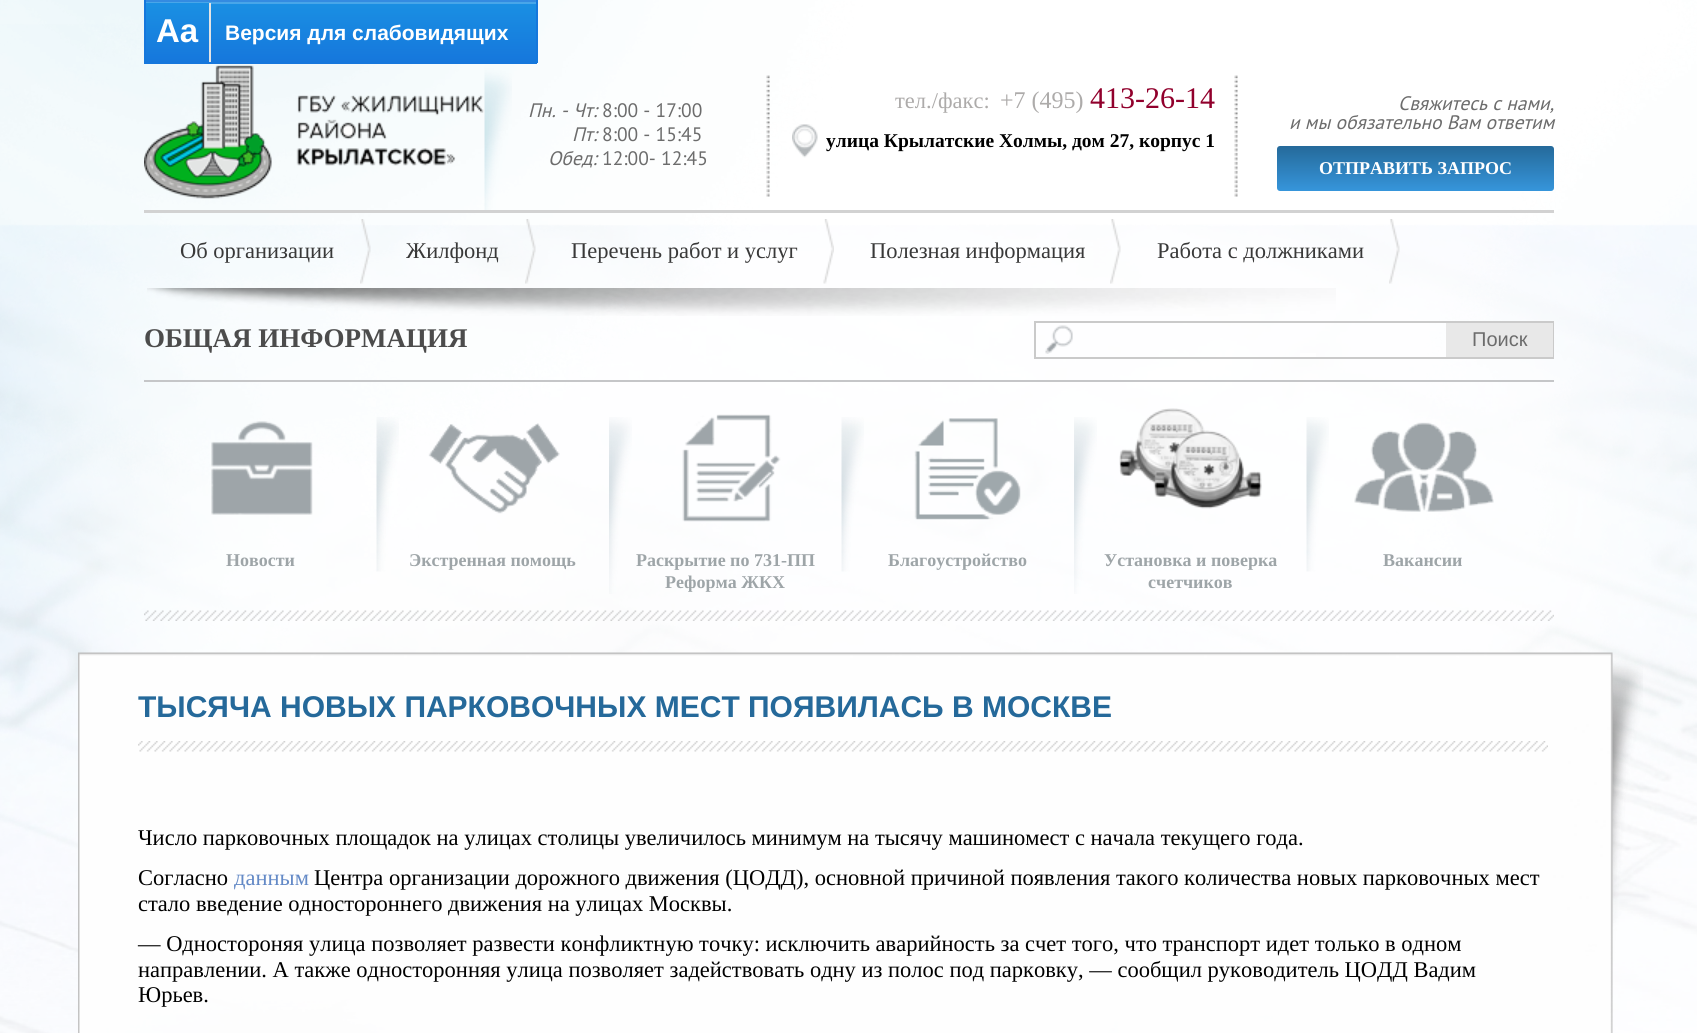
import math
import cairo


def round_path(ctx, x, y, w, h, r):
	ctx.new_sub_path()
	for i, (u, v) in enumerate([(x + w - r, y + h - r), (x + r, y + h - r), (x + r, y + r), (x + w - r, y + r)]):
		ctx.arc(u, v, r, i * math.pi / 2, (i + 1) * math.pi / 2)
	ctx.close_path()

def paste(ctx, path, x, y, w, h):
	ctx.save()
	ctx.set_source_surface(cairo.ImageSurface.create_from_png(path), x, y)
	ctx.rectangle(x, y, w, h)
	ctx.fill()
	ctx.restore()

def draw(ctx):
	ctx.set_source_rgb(1, 1, 1)
	ctx.paint()
	paste(ctx, 'media/1.png', 0, 0, 1697, 1033)
	gradient = cairo.LinearGradient(341, 1.5, 341, 62)
	gradient.add_color_stop_rgba(0, 0.102, 0.565, 0.89, 1)
	gradient.add_color_stop_rgba(1, 0.086, 0.467, 0.863, 1)
	ctx.set_source(gradient)
	ctx.rectangle(211, 4, 325, 58)
	ctx.fill()
	ctx.set_source_rgb(0.204, 0.545, 0.882)
	ctx.rectangle(144, 0, 393, 2)
	ctx.fill()
	ctx.set_source_rgb(0.086, 0.467, 0.863)
	ctx.rectangle(536, 0, 2, 63)
	ctx.rectangle(144, 62, 393, 2)
	ctx.rectangle(144, 0, 2, 63)
	ctx.fill()
	ctx.set_source_rgb(0.282, 0.651, 0.914)
	ctx.rectangle(146, 2, 390, 2)
	ctx.fill()
	gradient = cairo.LinearGradient(177, 3, 177, 62)
	gradient.add_color_stop_rgba(0, 0.102, 0.565, 0.89, 1)
	gradient.add_color_stop_rgba(1, 0.086, 0.467, 0.863, 1)
	ctx.set_source(gradient)
	ctx.rectangle(146, 3, 63, 59)
	ctx.fill()
	ctx.set_source_rgb(0.894, 0.894, 0.894)
	ctx.rectangle(209, 3, 2, 59)
	ctx.fill()
	ctx.select_font_face('Liberation Sans', cairo.FONT_SLANT_NORMAL, cairo.FONT_WEIGHT_BOLD)
	ctx.set_font_size(33)
	ctx.set_source_rgb(1, 1, 1)
	ctx.move_to(156, 42)
	ctx.show_text('Aa')
	ctx.set_font_size(21)
	ctx.move_to(225, 40)
	ctx.show_text('Версия для слабовидящих')
	paste(ctx, 'media/2.png', 144, 65, 368, 145)
	paste(ctx, 'media/3.png', 766, 75, 4, 122)
	ctx.select_font_face('PT Sans', cairo.FONT_SLANT_ITALIC)
	ctx.set_font_size(19.5)
	ctx.set_source_rgb(0.424, 0.424, 0.424)
	ctx.move_to(528, 117)
	ctx.show_text('Пн. - Чт:')
	ctx.select_font_face('PT Sans')
	ctx.move_to(602, 117)
	ctx.show_text('8:00 - 17:00')
	ctx.select_font_face('PT Sans', cairo.FONT_SLANT_ITALIC)
	ctx.move_to(572, 141)
	ctx.show_text('Пт:')
	ctx.select_font_face('PT Sans')
	ctx.move_to(602, 141)
	ctx.show_text('8:00 - 15:45')
	ctx.select_font_face('PT Sans', cairo.FONT_SLANT_ITALIC)
	ctx.move_to(548, 165)
	ctx.show_text('Обед:')
	ctx.select_font_face('PT Sans')
	ctx.move_to(602, 165)
	ctx.show_text('12:00- 12:45')
	paste(ctx, 'media/4.png', 1234, 75, 4, 122)
	ctx.select_font_face('Liberation Serif')
	ctx.set_font_size(22.5)
	ctx.set_source_rgb(0.678, 0.671, 0.667)
	ctx.move_to(895, 108)
	ctx.show_text('тел./факс:')
	ctx.set_font_size(24)
	ctx.move_to(1000, 108)
	ctx.show_text('+7 (495)')
	ctx.set_font_size(30)
	ctx.set_source_rgb(0.569, 0, 0.173)
	ctx.move_to(1090, 108)
	ctx.show_text('413-26-14')
	paste(ctx, 'media/5.png', 792, 124, 26, 34)
	ctx.select_font_face('Liberation Serif', cairo.FONT_SLANT_NORMAL, cairo.FONT_WEIGHT_BOLD)
	ctx.set_font_size(19.5)
	ctx.set_source_rgb(0, 0, 0)
	ctx.move_to(826, 147)
	ctx.show_text('улица Крылатские Холмы, дом 27, корпус 1')
	ctx.select_font_face('PT Sans', cairo.FONT_SLANT_ITALIC)
	ctx.set_source_rgb(0.424, 0.424, 0.424)
	ctx.move_to(1398, 110)
	ctx.show_text('Свяжитесь с нами,')
	ctx.move_to(1289, 129)
	ctx.show_text('и мы обязательно Вам ответим')
	gradient = cairo.LinearGradient(1415, 191, 1415, 146)
	gradient.add_color_stop_rgba(0, 0.212, 0.588, 0.859, 1)
	gradient.add_color_stop_rgba(1, 0.145, 0.412, 0.604, 1)
	ctx.set_source(gradient)
	round_path(ctx, 1277, 146, 277, 45, 3)
	ctx.fill()
	ctx.select_font_face('Liberation Serif', cairo.FONT_SLANT_NORMAL, cairo.FONT_WEIGHT_BOLD)
	ctx.set_font_size(18)
	ctx.set_source_rgb(1, 1, 1)
	ctx.move_to(1319, 174)
	ctx.show_text('ОТПРАВИТЬ ЗАПРОС')
	paste(ctx, 'media/6.png', 147, 288, 1189, 28)
	ctx.set_source_rgb(0.824, 0.824, 0.824)
	ctx.rectangle(144, 210, 1410, 3)
	ctx.fill()
	paste(ctx, 'media/7.png', 360, 219, 11, 65)
	ctx.select_font_face('Liberation Serif')
	ctx.set_font_size(22.5)
	ctx.set_source_rgb(0.224, 0.224, 0.224)
	ctx.move_to(180, 258)
	ctx.show_text('Об организации')
	paste(ctx, 'media/8.png', 525, 219, 11, 65)
	ctx.move_to(406, 258)
	ctx.show_text('Жилфонд')
	paste(ctx, 'media/9.png', 823, 219, 11, 65)
	ctx.move_to(571, 258)
	ctx.show_text('Перечень работ и услуг')
	paste(ctx, 'media/10.png', 1110, 219, 11, 65)
	ctx.move_to(870, 258)
	ctx.show_text('Полезная информация')
	paste(ctx, 'media/11.png', 1389, 219, 11, 65)
	ctx.move_to(1157, 258)
	ctx.show_text('Работа с должниками')
	ctx.select_font_face('Liberation Serif', cairo.FONT_SLANT_NORMAL, cairo.FONT_WEIGHT_BOLD)
	ctx.set_font_size(27)
	ctx.set_source_rgb(0.298, 0.298, 0.298)
	ctx.move_to(144, 347)
	ctx.show_text('ОБЩАЯ ИНФОРМАЦИЯ')
	paste(ctx, 'media/12.png', 1045, 325, 28, 29)
	ctx.rectangle(1035, 322, 518, 36)
	ctx.set_source_rgb(0.792, 0.792, 0.792)
	ctx.stroke()
	ctx.set_source_rgb(0.91, 0.91, 0.91)
	ctx.rectangle(1446, 323, 107, 34)
	ctx.fill()
	ctx.select_font_face('Liberation Sans')
	ctx.set_font_size(20)
	ctx.set_source_rgb(0.424, 0.424, 0.424)
	ctx.move_to(1472, 346)
	ctx.show_text('Поиск')
	ctx.set_source_rgb(1, 1, 1)
	ctx.rectangle(1300, 353, 16, 4)
	ctx.fill()
	paste(ctx, 'media/13.png', 144, 610, 1410, 11)
	ctx.set_source_rgb(0.773, 0.776, 0.784)
	ctx.rectangle(144, 380, 1410, 2)
	ctx.fill()
	paste(ctx, 'media/14.png', 211, 421, 102, 94)
	ctx.select_font_face('Liberation Serif', cairo.FONT_SLANT_NORMAL, cairo.FONT_WEIGHT_BOLD)
	ctx.set_font_size(18)
	ctx.set_source_rgb(0.62, 0.647, 0.659)
	ctx.move_to(226, 566)
	ctx.show_text('Новости')
	paste(ctx, 'media/15.png', 376, 417, 23, 155)
	paste(ctx, 'media/16.png', 428, 423, 132, 91)
	ctx.move_to(409, 566)
	ctx.show_text('Экстренная помощь')
	paste(ctx, 'media/17.png', 609, 417, 23, 177)
	paste(ctx, 'media/18.png', 682, 414, 99, 108)
	ctx.move_to(636, 566)
	ctx.show_text('Раскрытие по 731-ПП')
	ctx.move_to(665, 588)
	ctx.show_text('Реформа ЖКХ')
	paste(ctx, 'media/19.png', 841, 417, 23, 155)
	paste(ctx, 'media/20.png', 914, 418, 107, 102)
	ctx.move_to(888, 566)
	ctx.show_text('Благоустройство')
	paste(ctx, 'media/21.png', 1074, 417, 23, 177)
	paste(ctx, 'media/22.png', 1119, 408, 143, 101)
	ctx.move_to(1104, 566)
	ctx.show_text('Установка и поверка')
	ctx.move_to(1148, 588)
	ctx.show_text('счетчиков')
	paste(ctx, 'media/23.png', 1306, 417, 23, 155)
	paste(ctx, 'media/24.png', 1354, 422, 140, 90)
	ctx.move_to(1383, 566)
	ctx.show_text('Вакансии')
	paste(ctx, 'media/25.png', 78, 652, 1565, 381)
	ctx.select_font_face('Liberation Sans', cairo.FONT_SLANT_NORMAL, cairo.FONT_WEIGHT_BOLD)
	ctx.set_font_size(30)
	ctx.set_source_rgb(0.145, 0.412, 0.604)
	ctx.move_to(138, 717)
	ctx.show_text('ТЫСЯЧА НОВЫХ ПАРКОВОЧНЫХ МЕСТ ПОЯВИЛАСЬ В МОСКВЕ')
	paste(ctx, 'media/26.png', 138, 741, 1410, 11)
	ctx.select_font_face('Liberation Serif')
	ctx.set_font_size(22.5)
	ctx.set_source_rgb(0, 0, 0)
	ctx.move_to(138, 845)
	ctx.show_text('Число парковочных площадок на улицах столицы увеличилось минимум на тысячу машиномест с начала текущего года.')
	ctx.move_to(138, 885)
	ctx.show_text('Согласно')
	ctx.set_source_rgb(0.388, 0.537, 0.776)
	ctx.move_to(234, 885)
	ctx.show_text('данным')
	ctx.set_source_rgb(0, 0, 0)
	for x, y, s in [
		(314, 885, 'Центра организации дорожного движения (ЦОДД), основной причиной появления такого количества новых парковочных мест'),
		(138, 911, 'стало введение одностороннего движения на улицах Москвы.'),
		(138, 951, '— Одностороняя улица позволяет развести конфликтную точку: исключить аварийность за счет того, что транспорт идет только в одном'),
		(138, 977, 'направлении. А также односторонняя улица позволяет задействовать одну из полос под парковку, — сообщил руководитель ЦОДД Вадим'),
		(138, 1002, 'Юрьев.'),
	]:
		ctx.move_to(x, y)
		ctx.show_text(s)


surface = cairo.ImageSurface(cairo.FORMAT_RGB24, 1697, 1033)
ctx = cairo.Context(surface)
options = cairo.FontOptions()
options.set_hint_metrics(cairo.HINT_METRICS_OFF)
options.set_hint_style(cairo.HINT_STYLE_NONE)
ctx.set_font_options(options)
ctx.set_miter_limit(4)
draw(ctx)
surface.write_to_png('image.png')
